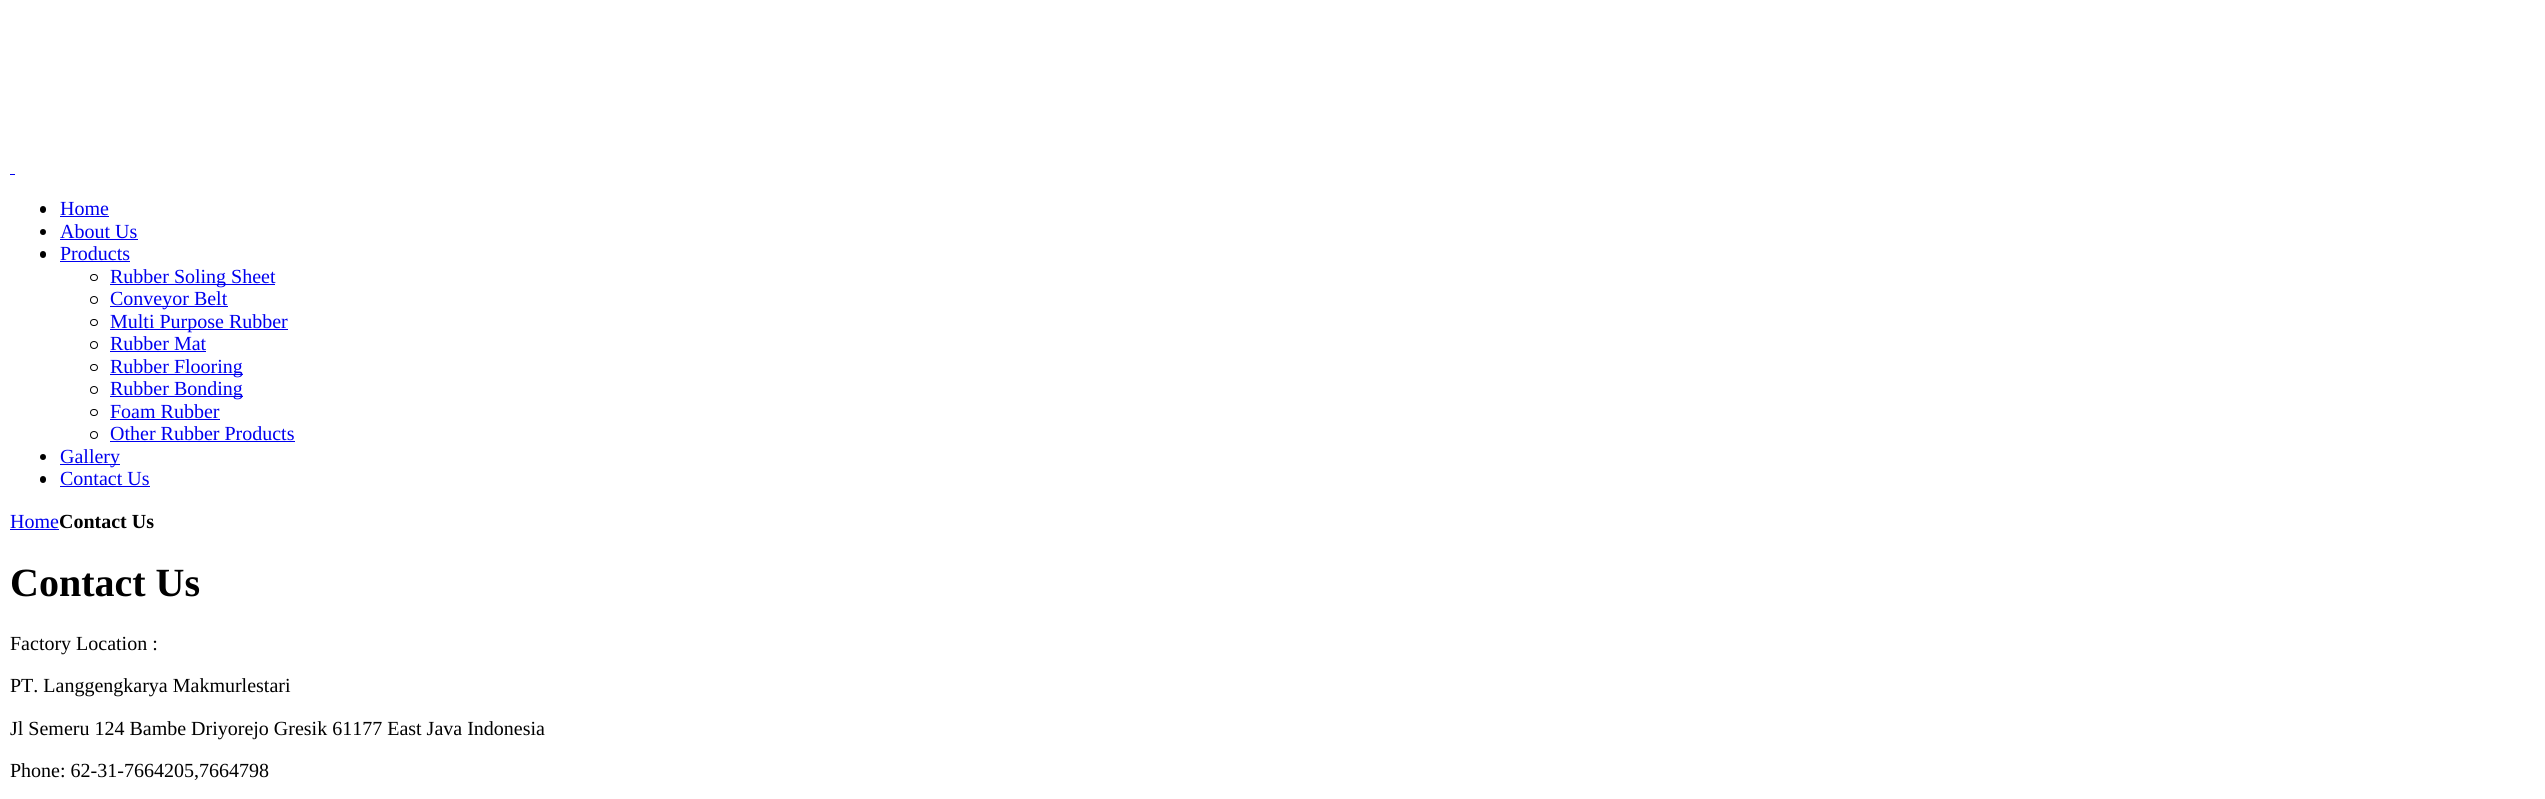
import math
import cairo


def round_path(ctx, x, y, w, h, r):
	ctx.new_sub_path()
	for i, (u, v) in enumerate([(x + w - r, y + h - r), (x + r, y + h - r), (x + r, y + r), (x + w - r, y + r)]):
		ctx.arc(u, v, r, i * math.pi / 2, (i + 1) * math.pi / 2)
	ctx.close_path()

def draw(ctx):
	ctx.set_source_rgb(1, 1, 1)
	ctx.paint()
	ctx.set_source_rgb(0, 0, 0.933)
	ctx.rectangle(10, 174, 5, 1)
	ctx.fill()
	ctx.set_source_rgb(0, 0, 0)
	round_path(ctx, 40, 206, 6, 7, 3)
	ctx.fill()
	ctx.select_font_face('Liberation Serif')
	ctx.set_font_size(20)
	ctx.set_source_rgb(0, 0, 0.933)
	ctx.move_to(60, 215)
	ctx.show_text('Home')
	ctx.rectangle(60, 216, 49, 1)
	ctx.fill()
	ctx.set_source_rgb(0, 0, 0)
	ctx.arc(43, 232, 3, 0, 2 * math.pi)
	ctx.fill()
	ctx.set_source_rgb(0, 0, 0.933)
	ctx.move_to(60, 238)
	ctx.show_text('About Us')
	ctx.rectangle(60, 239, 78, 1)
	ctx.fill()
	ctx.set_source_rgb(0, 0, 0)
	round_path(ctx, 40, 251, 6, 7, 3)
	ctx.fill()
	ctx.set_source_rgb(0, 0, 0.933)
	ctx.move_to(60, 260)
	ctx.show_text('Products')
	ctx.rectangle(60, 261, 70, 1)
	ctx.fill()
	round_path(ctx, 90.5, 274.5, 7, 6, 3)
	ctx.set_source_rgb(0, 0, 0)
	ctx.set_line_width(1)
	ctx.stroke()
	ctx.set_source_rgb(0, 0, 0.933)
	ctx.rectangle(110, 284, 165, 1)
	ctx.fill()
	ctx.move_to(110, 283)
	ctx.show_text('Rubber Soling Sheet')
	ctx.new_path()
	ctx.arc(94, 300, 3.5, 0, 2 * math.pi)
	ctx.set_source_rgb(0, 0, 0)
	ctx.stroke()
	ctx.set_source_rgb(0, 0, 0.933)
	ctx.rectangle(110, 306, 118, 1)
	ctx.fill()
	ctx.move_to(110, 305)
	ctx.show_text('Conveyor Belt')
	round_path(ctx, 90.5, 319.5, 7, 6, 3)
	ctx.set_source_rgb(0, 0, 0)
	ctx.stroke()
	ctx.set_source_rgb(0, 0, 0.933)
	ctx.rectangle(110, 329, 178, 1)
	ctx.fill()
	ctx.move_to(110, 328)
	ctx.show_text('Multi Purpose Rubber')
	ctx.new_path()
	ctx.arc(94, 345, 3.5, 0, 2 * math.pi)
	ctx.set_source_rgb(0, 0, 0)
	ctx.stroke()
	ctx.set_source_rgb(0, 0, 0.933)
	ctx.move_to(110, 350)
	ctx.show_text('Rubber Mat')
	ctx.rectangle(110, 351, 96, 1)
	ctx.fill()
	round_path(ctx, 90.5, 364.5, 7, 6, 3)
	ctx.set_source_rgb(0, 0, 0)
	ctx.stroke()
	ctx.set_source_rgb(0, 0, 0.933)
	ctx.rectangle(110, 374, 133, 1)
	ctx.fill()
	ctx.move_to(110, 373)
	ctx.show_text('Rubber Flooring')
	ctx.new_path()
	ctx.arc(94, 390, 3.5, 0, 2 * math.pi)
	ctx.set_source_rgb(0, 0, 0)
	ctx.stroke()
	ctx.set_source_rgb(0, 0, 0.933)
	ctx.rectangle(110, 396, 133, 1)
	ctx.fill()
	ctx.move_to(110, 395)
	ctx.show_text('Rubber Bonding')
	round_path(ctx, 90.5, 409.5, 7, 6, 3)
	ctx.set_source_rgb(0, 0, 0)
	ctx.stroke()
	ctx.set_source_rgb(0, 0, 0.933)
	ctx.move_to(110, 418)
	ctx.show_text('Foam Rubber')
	ctx.rectangle(110, 419, 110, 1)
	ctx.fill()
	ctx.arc(94, 435, 3.5, 0, 2 * math.pi)
	ctx.set_source_rgb(0, 0, 0)
	ctx.stroke()
	ctx.set_source_rgb(0, 0, 0.933)
	ctx.move_to(110, 440)
	ctx.show_text('Other Rubber Products')
	ctx.rectangle(110, 441, 185, 1)
	ctx.fill()
	ctx.set_source_rgb(0, 0, 0)
	ctx.arc(43, 457, 3, 0, 2 * math.pi)
	ctx.fill()
	ctx.set_source_rgb(0, 0, 0.933)
	ctx.rectangle(60, 464, 60, 1)
	ctx.fill()
	ctx.move_to(60, 463)
	ctx.show_text('Gallery')
	ctx.set_source_rgb(0, 0, 0)
	round_path(ctx, 40, 476, 6, 7, 3)
	ctx.fill()
	ctx.set_source_rgb(0, 0, 0.933)
	ctx.move_to(60, 485)
	ctx.show_text('Contact Us')
	ctx.rectangle(60, 486, 90, 1)
	ctx.fill()
	ctx.move_to(10, 528)
	ctx.show_text('Home')
	ctx.rectangle(10, 529, 49, 1)
	ctx.fill()
	ctx.select_font_face('Liberation Serif', cairo.FONT_SLANT_NORMAL, cairo.FONT_WEIGHT_BOLD)
	ctx.set_source_rgb(0, 0, 0)
	ctx.move_to(59, 528)
	ctx.show_text('Contact Us')
	ctx.set_font_size(40)
	ctx.move_to(10, 596)
	ctx.show_text('Contact Us')
	ctx.select_font_face('Liberation Serif')
	ctx.set_font_size(20)
	for x, y, s in [
		(10, 650, 'Factory Location :'),
		(10, 692, 'PT. Langgengkarya Makmurlestari'),
		(10, 735, 'Jl Semeru 124 Bambe Driyorejo Gresik 61177 East Java Indonesia'),
		(10, 777, 'Phone: 62-31-7664205,7664798'),
	]:
		ctx.move_to(x, y)
		ctx.show_text(s)


surface = cairo.ImageSurface(cairo.FORMAT_RGB24, 2545, 799)
ctx = cairo.Context(surface)
options = cairo.FontOptions()
options.set_hint_metrics(cairo.HINT_METRICS_OFF)
options.set_hint_style(cairo.HINT_STYLE_NONE)
ctx.set_font_options(options)
ctx.set_miter_limit(4)
draw(ctx)
surface.write_to_png('image.png')
